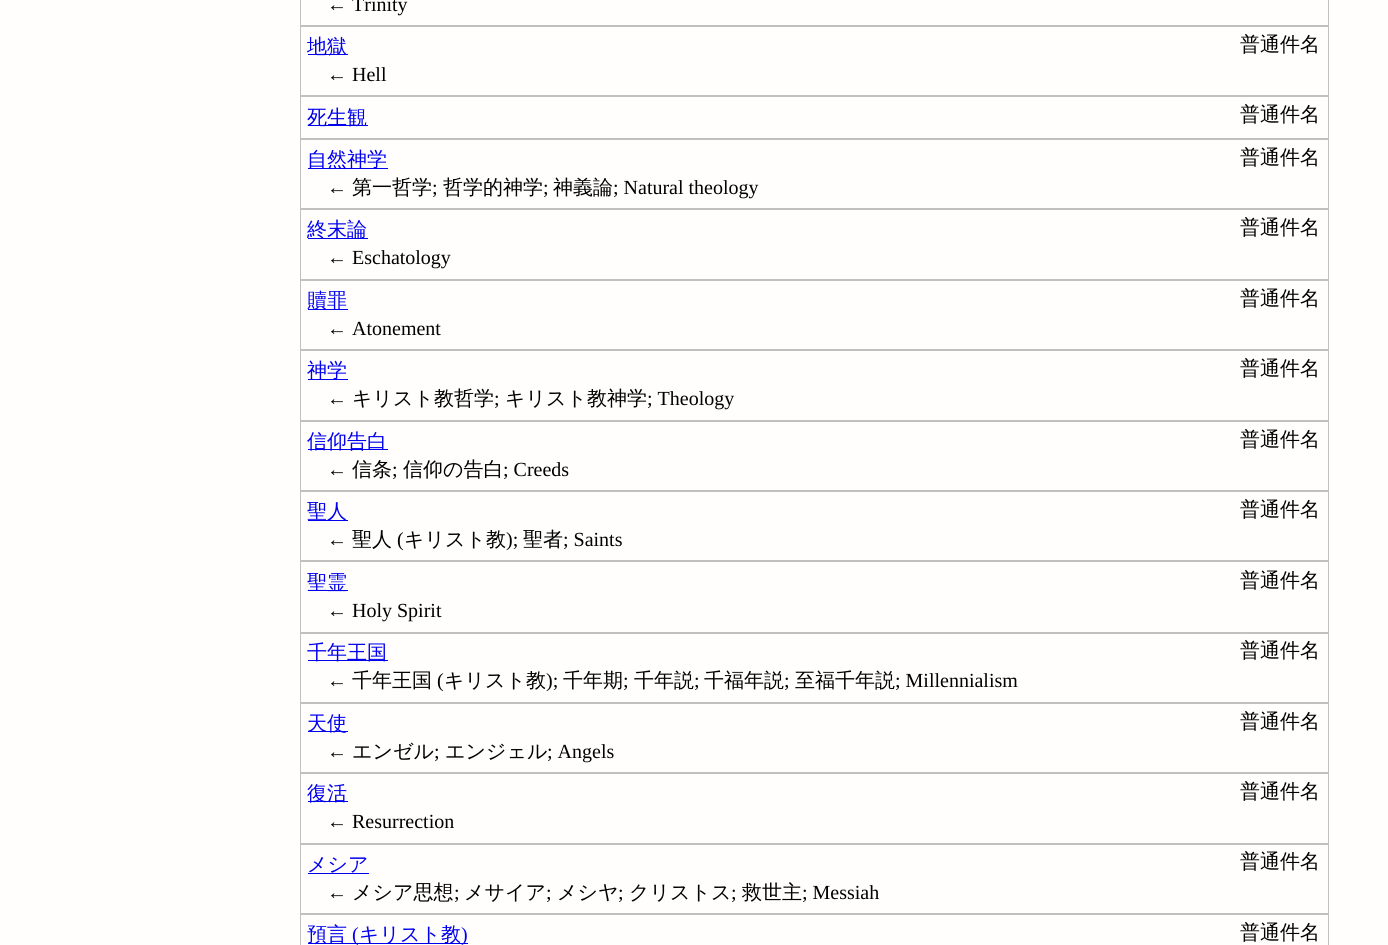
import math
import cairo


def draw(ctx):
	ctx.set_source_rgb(1, 0.996, 0.992)
	ctx.paint()
	ctx.rectangle(300.5, -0.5, 1028, 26)
	ctx.set_source_rgb(0.753, 0.753, 0.753)
	ctx.set_line_width(1)
	ctx.stroke()
	ctx.select_font_face('Liberation Serif')
	ctx.set_font_size(20)
	ctx.set_source_rgb(0, 0, 0)
	ctx.move_to(327, 11)
	ctx.show_text('← Trinity')
	ctx.rectangle(300.5, 26.5, 1028, 69)
	ctx.set_source_rgb(0.753, 0.753, 0.753)
	ctx.stroke()
	ctx.set_source_rgb(0, 0, 0.933)
	ctx.rectangle(308, 54, 40, 1)
	ctx.fill()
	ctx.select_font_face('WenQuanYi Zen Hei Medium')
	ctx.move_to(307, 53)
	ctx.show_text('地獄')
	ctx.set_source_rgb(0, 0, 0)
	ctx.move_to(1240, 51)
	ctx.show_text('普通件名')
	ctx.select_font_face('Liberation Serif')
	ctx.move_to(327, 81)
	ctx.show_text('← Hell')
	ctx.rectangle(300.5, 96.5, 1028, 42)
	ctx.set_source_rgb(0.753, 0.753, 0.753)
	ctx.stroke()
	ctx.set_source_rgb(0, 0, 0.933)
	ctx.rectangle(308, 125, 60, 1)
	ctx.fill()
	ctx.select_font_face('WenQuanYi Zen Hei Medium')
	ctx.move_to(307, 124)
	ctx.show_text('死生観')
	ctx.set_source_rgb(0, 0, 0)
	ctx.move_to(1240, 121)
	ctx.show_text('普通件名')
	ctx.rectangle(300.5, 139.5, 1028, 69)
	ctx.set_source_rgb(0.753, 0.753, 0.753)
	ctx.stroke()
	ctx.set_source_rgb(0, 0, 0.933)
	ctx.rectangle(308, 168, 80, 1)
	ctx.fill()
	ctx.move_to(307, 166)
	ctx.show_text('自然神学')
	ctx.set_source_rgb(0, 0, 0)
	ctx.move_to(1240, 164)
	ctx.show_text('普通件名')
	ctx.select_font_face('Liberation Serif')
	ctx.move_to(327, 194)
	ctx.show_text('←')
	ctx.select_font_face('WenQuanYi Zen Hei Medium')
	ctx.move_to(352, 194)
	ctx.show_text('第一哲学')
	ctx.select_font_face('Liberation Serif')
	ctx.move_to(432, 194)
	ctx.show_text(';')
	ctx.select_font_face('WenQuanYi Zen Hei Medium')
	ctx.move_to(443, 194)
	ctx.show_text('哲学的神学')
	ctx.select_font_face('Liberation Serif')
	ctx.move_to(543, 194)
	ctx.show_text(';')
	ctx.select_font_face('WenQuanYi Zen Hei Medium')
	ctx.move_to(553, 194)
	ctx.show_text('神義論')
	ctx.select_font_face('Liberation Serif')
	ctx.move_to(613, 194)
	ctx.show_text('; Natural theology')
	ctx.rectangle(300.5, 209.5, 1028, 70)
	ctx.set_source_rgb(0.753, 0.753, 0.753)
	ctx.stroke()
	ctx.set_source_rgb(0, 0, 0.933)
	ctx.rectangle(308, 238, 60, 1)
	ctx.fill()
	ctx.select_font_face('WenQuanYi Zen Hei Medium')
	ctx.move_to(307, 236)
	ctx.show_text('終末論')
	ctx.set_source_rgb(0, 0, 0)
	ctx.move_to(1240, 234)
	ctx.show_text('普通件名')
	ctx.select_font_face('Liberation Serif')
	ctx.move_to(327, 264)
	ctx.show_text('← Eschatology')
	ctx.rectangle(300.5, 280.5, 1028, 69)
	ctx.set_source_rgb(0.753, 0.753, 0.753)
	ctx.stroke()
	ctx.set_source_rgb(0, 0, 0.933)
	ctx.rectangle(308, 309, 40, 1)
	ctx.fill()
	ctx.select_font_face('WenQuanYi Zen Hei Medium')
	ctx.move_to(307, 307)
	ctx.show_text('贖罪')
	ctx.set_source_rgb(0, 0, 0)
	ctx.move_to(1240, 305)
	ctx.show_text('普通件名')
	ctx.select_font_face('Liberation Serif')
	ctx.move_to(327, 335)
	ctx.show_text('← Atonement')
	ctx.rectangle(300.5, 350.5, 1028, 70)
	ctx.set_source_rgb(0.753, 0.753, 0.753)
	ctx.stroke()
	ctx.set_source_rgb(0, 0, 0.933)
	ctx.rectangle(308, 379, 40, 1)
	ctx.fill()
	ctx.select_font_face('WenQuanYi Zen Hei Medium')
	ctx.move_to(307, 377)
	ctx.show_text('神学')
	ctx.set_source_rgb(0, 0, 0)
	ctx.move_to(1240, 375)
	ctx.show_text('普通件名')
	ctx.select_font_face('Liberation Serif')
	ctx.move_to(327, 405)
	ctx.show_text('←')
	ctx.select_font_face('WenQuanYi Zen Hei Medium')
	ctx.move_to(352, 405)
	ctx.show_text('キリスト教哲学')
	ctx.select_font_face('Liberation Serif')
	ctx.move_to(494, 405)
	ctx.show_text(';')
	ctx.select_font_face('WenQuanYi Zen Hei Medium')
	ctx.move_to(505, 405)
	ctx.show_text('キリスト教神学')
	ctx.select_font_face('Liberation Serif')
	ctx.move_to(647, 405)
	ctx.show_text('; Theology')
	ctx.rectangle(300.5, 421.5, 1028, 69)
	ctx.set_source_rgb(0.753, 0.753, 0.753)
	ctx.stroke()
	ctx.set_source_rgb(0, 0, 0.933)
	ctx.rectangle(308, 449, 80, 1)
	ctx.fill()
	ctx.select_font_face('WenQuanYi Zen Hei Medium')
	ctx.move_to(307, 448)
	ctx.show_text('信仰告白')
	ctx.set_source_rgb(0, 0, 0)
	ctx.move_to(1240, 446)
	ctx.show_text('普通件名')
	ctx.select_font_face('Liberation Serif')
	ctx.move_to(327, 476)
	ctx.show_text('←')
	ctx.select_font_face('WenQuanYi Zen Hei Medium')
	ctx.move_to(352, 476)
	ctx.show_text('信条')
	ctx.select_font_face('Liberation Serif')
	ctx.move_to(392, 476)
	ctx.show_text(';')
	ctx.select_font_face('WenQuanYi Zen Hei Medium')
	ctx.move_to(403, 476)
	ctx.show_text('信仰の告白')
	ctx.select_font_face('Liberation Serif')
	ctx.move_to(503, 476)
	ctx.show_text('; Creeds')
	ctx.rectangle(300.5, 491.5, 1028, 69)
	ctx.set_source_rgb(0.753, 0.753, 0.753)
	ctx.stroke()
	ctx.set_source_rgb(0, 0, 0.933)
	ctx.rectangle(308, 520, 40, 1)
	ctx.fill()
	ctx.select_font_face('WenQuanYi Zen Hei Medium')
	ctx.move_to(307, 518)
	ctx.show_text('聖人')
	ctx.set_source_rgb(0, 0, 0)
	ctx.move_to(1240, 516)
	ctx.show_text('普通件名')
	ctx.select_font_face('Liberation Serif')
	ctx.move_to(327, 546)
	ctx.show_text('←')
	ctx.select_font_face('WenQuanYi Zen Hei Medium')
	ctx.move_to(352, 546)
	ctx.show_text('聖人')
	ctx.select_font_face('Liberation Serif')
	ctx.move_to(397, 546)
	ctx.show_text('(')
	ctx.select_font_face('WenQuanYi Zen Hei Medium')
	ctx.move_to(404, 546)
	ctx.show_text('キリスト教')
	ctx.select_font_face('Liberation Serif')
	ctx.move_to(506, 546)
	ctx.show_text(');')
	ctx.select_font_face('WenQuanYi Zen Hei Medium')
	ctx.move_to(523, 546)
	ctx.show_text('聖者')
	ctx.select_font_face('Liberation Serif')
	ctx.move_to(563, 546)
	ctx.show_text('; Saints')
	ctx.rectangle(300.5, 561.5, 1028, 71)
	ctx.set_source_rgb(0.753, 0.753, 0.753)
	ctx.stroke()
	ctx.set_source_rgb(0, 0, 0.933)
	ctx.rectangle(308, 590, 40, 1)
	ctx.fill()
	ctx.select_font_face('WenQuanYi Zen Hei Medium')
	ctx.move_to(307, 589)
	ctx.show_text('聖霊')
	ctx.set_source_rgb(0, 0, 0)
	ctx.move_to(1240, 587)
	ctx.show_text('普通件名')
	ctx.select_font_face('Liberation Serif')
	ctx.move_to(327, 617)
	ctx.show_text('← Holy Spirit')
	ctx.rectangle(300.5, 633.5, 1028, 69)
	ctx.set_source_rgb(0.753, 0.753, 0.753)
	ctx.stroke()
	ctx.set_source_rgb(0, 0, 0.933)
	ctx.rectangle(308, 660, 80, 1)
	ctx.fill()
	ctx.select_font_face('WenQuanYi Zen Hei Medium')
	ctx.move_to(307, 659)
	ctx.show_text('千年王国')
	ctx.set_source_rgb(0, 0, 0)
	ctx.move_to(1240, 657)
	ctx.show_text('普通件名')
	ctx.select_font_face('Liberation Serif')
	ctx.move_to(327, 687)
	ctx.show_text('←')
	ctx.select_font_face('WenQuanYi Zen Hei Medium')
	ctx.move_to(352, 687)
	ctx.show_text('千年王国')
	ctx.select_font_face('Liberation Serif')
	ctx.move_to(437, 687)
	ctx.show_text('(')
	ctx.select_font_face('WenQuanYi Zen Hei Medium')
	ctx.move_to(444, 687)
	ctx.show_text('キリスト教')
	ctx.select_font_face('Liberation Serif')
	ctx.move_to(546, 687)
	ctx.show_text(');')
	ctx.select_font_face('WenQuanYi Zen Hei Medium')
	ctx.move_to(563, 687)
	ctx.show_text('千年期')
	ctx.select_font_face('Liberation Serif')
	ctx.move_to(623, 687)
	ctx.show_text(';')
	ctx.select_font_face('WenQuanYi Zen Hei Medium')
	ctx.move_to(634, 687)
	ctx.show_text('千年説')
	ctx.select_font_face('Liberation Serif')
	ctx.move_to(694, 687)
	ctx.show_text(';')
	ctx.select_font_face('WenQuanYi Zen Hei Medium')
	ctx.move_to(704, 687)
	ctx.show_text('千福年説')
	ctx.select_font_face('Liberation Serif')
	ctx.move_to(784, 687)
	ctx.show_text(';')
	ctx.select_font_face('WenQuanYi Zen Hei Medium')
	ctx.move_to(795, 687)
	ctx.show_text('至福千年説')
	ctx.select_font_face('Liberation Serif')
	ctx.move_to(895, 687)
	ctx.show_text('; Millennialism')
	ctx.rectangle(300.5, 703.5, 1028, 69)
	ctx.set_source_rgb(0.753, 0.753, 0.753)
	ctx.stroke()
	ctx.set_source_rgb(0, 0, 0.933)
	ctx.rectangle(308, 731, 40, 1)
	ctx.fill()
	ctx.select_font_face('WenQuanYi Zen Hei Medium')
	ctx.move_to(307, 730)
	ctx.show_text('天使')
	ctx.set_source_rgb(0, 0, 0)
	ctx.move_to(1240, 728)
	ctx.show_text('普通件名')
	ctx.select_font_face('Liberation Serif')
	ctx.move_to(327, 758)
	ctx.show_text('←')
	ctx.select_font_face('WenQuanYi Zen Hei Medium')
	ctx.move_to(352, 758)
	ctx.show_text('エンゼル')
	ctx.select_font_face('Liberation Serif')
	ctx.move_to(434, 758)
	ctx.show_text(';')
	ctx.select_font_face('WenQuanYi Zen Hei Medium')
	ctx.move_to(445, 758)
	ctx.show_text('エンジェル')
	ctx.select_font_face('Liberation Serif')
	ctx.move_to(547, 758)
	ctx.show_text('; Angels')
	ctx.rectangle(300.5, 773.5, 1028, 70)
	ctx.set_source_rgb(0.753, 0.753, 0.753)
	ctx.stroke()
	ctx.set_source_rgb(0, 0, 0.933)
	ctx.rectangle(308, 801, 40, 1)
	ctx.fill()
	ctx.select_font_face('WenQuanYi Zen Hei Medium')
	ctx.move_to(307, 800)
	ctx.show_text('復活')
	ctx.set_source_rgb(0, 0, 0)
	ctx.move_to(1240, 798)
	ctx.show_text('普通件名')
	ctx.select_font_face('Liberation Serif')
	ctx.move_to(327, 828)
	ctx.show_text('← Resurrection')
	ctx.rectangle(300.5, 844.5, 1028, 69)
	ctx.set_source_rgb(0.753, 0.753, 0.753)
	ctx.stroke()
	ctx.select_font_face('WenQuanYi Zen Hei Medium')
	ctx.set_source_rgb(0, 0, 0.933)
	ctx.move_to(307, 871)
	ctx.show_text('メシア')
	ctx.rectangle(308, 873, 61, 1)
	ctx.fill()
	ctx.set_source_rgb(0, 0, 0)
	ctx.move_to(1240, 868)
	ctx.show_text('普通件名')
	ctx.select_font_face('Liberation Serif')
	ctx.move_to(327, 899)
	ctx.show_text('←')
	ctx.select_font_face('WenQuanYi Zen Hei Medium')
	ctx.move_to(352, 899)
	ctx.show_text('メシア思想')
	ctx.select_font_face('Liberation Serif')
	ctx.move_to(454, 899)
	ctx.show_text(';')
	ctx.select_font_face('WenQuanYi Zen Hei Medium')
	ctx.move_to(464, 899)
	ctx.show_text('メサイア')
	ctx.select_font_face('Liberation Serif')
	ctx.move_to(546, 899)
	ctx.show_text(';')
	ctx.select_font_face('WenQuanYi Zen Hei Medium')
	ctx.move_to(557, 899)
	ctx.show_text('メシヤ')
	ctx.select_font_face('Liberation Serif')
	ctx.move_to(618, 899)
	ctx.show_text(';')
	ctx.select_font_face('WenQuanYi Zen Hei Medium')
	ctx.move_to(629, 899)
	ctx.show_text('クリストス')
	ctx.select_font_face('Liberation Serif')
	ctx.move_to(731, 899)
	ctx.show_text(';')
	ctx.select_font_face('WenQuanYi Zen Hei Medium')
	ctx.move_to(742, 899)
	ctx.show_text('救世主')
	ctx.select_font_face('Liberation Serif')
	ctx.move_to(802, 899)
	ctx.show_text('; Messiah')
	ctx.rectangle(300.5, 914.5, 1028, 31)
	ctx.set_source_rgb(0.753, 0.753, 0.753)
	ctx.stroke()
	ctx.set_source_rgb(0, 0, 0.933)
	ctx.rectangle(308, 943, 160, 1)
	ctx.fill()
	ctx.select_font_face('WenQuanYi Zen Hei Medium')
	ctx.move_to(307, 941)
	ctx.show_text('預言')
	ctx.select_font_face('Liberation Serif')
	ctx.move_to(352, 941)
	ctx.show_text('(')
	ctx.select_font_face('WenQuanYi Zen Hei Medium')
	ctx.move_to(359, 941)
	ctx.show_text('キリスト教')
	ctx.select_font_face('Liberation Serif')
	ctx.move_to(461, 941)
	ctx.show_text(')')
	ctx.select_font_face('WenQuanYi Zen Hei Medium')
	ctx.set_source_rgb(0, 0, 0)
	ctx.move_to(1240, 939)
	ctx.show_text('普通件名')


surface = cairo.ImageSurface(cairo.FORMAT_RGB24, 1388, 945)
ctx = cairo.Context(surface)
options = cairo.FontOptions()
options.set_hint_metrics(cairo.HINT_METRICS_OFF)
options.set_hint_style(cairo.HINT_STYLE_NONE)
ctx.set_font_options(options)
ctx.set_miter_limit(4)
draw(ctx)
surface.write_to_png('image.png')
